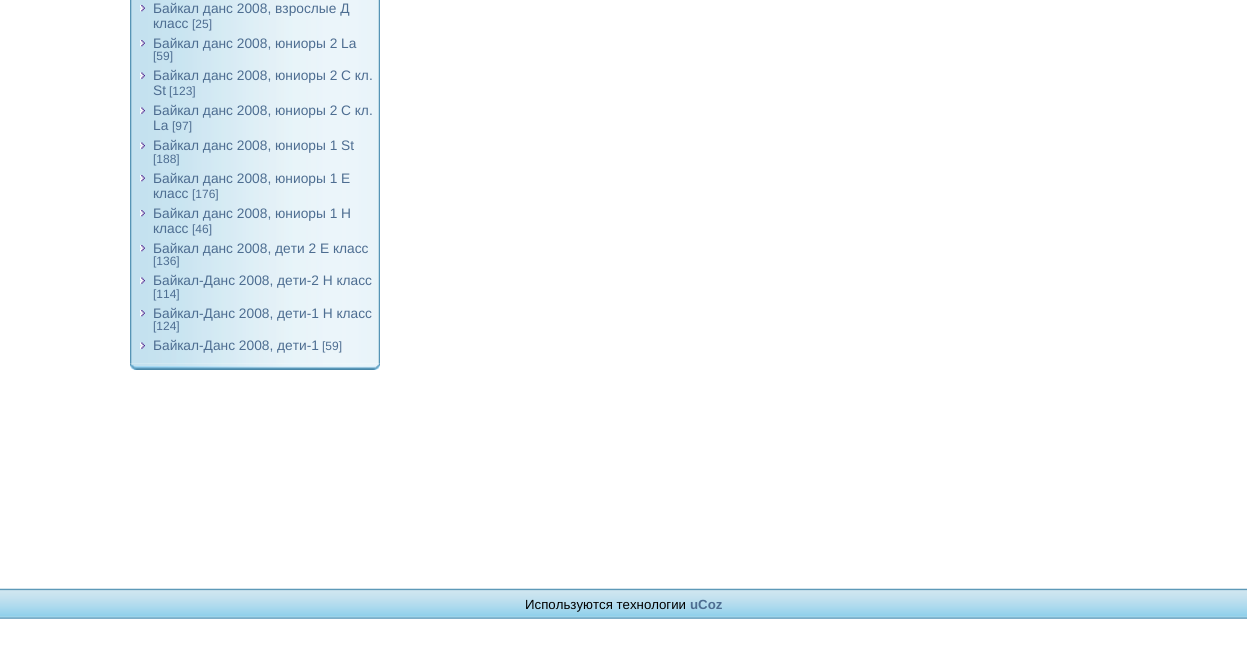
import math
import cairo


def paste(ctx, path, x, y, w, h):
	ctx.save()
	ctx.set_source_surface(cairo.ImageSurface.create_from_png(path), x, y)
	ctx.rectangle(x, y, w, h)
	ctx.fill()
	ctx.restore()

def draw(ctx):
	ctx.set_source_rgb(1, 1, 1)
	ctx.paint()
	paste(ctx, 'media/1.png', 130, 0, 250, 364)
	paste(ctx, 'media/2.png', 140, 5, 5, 7)
	ctx.select_font_face('Liberation Sans')
	ctx.set_font_size(13.75)
	ctx.set_source_rgb(0.302, 0.427, 0.569)
	ctx.move_to(153, 13)
	ctx.show_text('Байкал данс 2008, взрослые Д')
	ctx.move_to(153, 28)
	ctx.show_text('класс')
	ctx.set_font_size(12)
	ctx.move_to(192, 28)
	ctx.show_text('[25]')
	paste(ctx, 'media/2.png', 140, 40, 5, 7)
	ctx.set_font_size(13.75)
	ctx.move_to(153, 48)
	ctx.show_text('Байкал данс 2008, юниоры 2 La')
	ctx.set_font_size(12)
	ctx.move_to(153, 60)
	ctx.show_text('[59]')
	paste(ctx, 'media/3.png', 140, 72, 5, 7)
	ctx.set_font_size(13.75)
	ctx.move_to(153, 80)
	ctx.show_text('Байкал данс 2008, юниоры 2 C кл.')
	ctx.move_to(153, 95)
	ctx.show_text('St')
	ctx.set_font_size(12)
	ctx.move_to(169, 95)
	ctx.show_text('[123]')
	paste(ctx, 'media/3.png', 140, 107, 5, 7)
	ctx.set_font_size(13.75)
	ctx.move_to(153, 115)
	ctx.show_text('Байкал данс 2008, юниоры 2 C кл.')
	ctx.move_to(153, 130)
	ctx.show_text('La')
	ctx.set_font_size(12)
	ctx.move_to(172, 130)
	ctx.show_text('[97]')
	paste(ctx, 'media/3.png', 140, 142, 5, 7)
	ctx.set_font_size(13.75)
	ctx.move_to(153, 150)
	ctx.show_text('Байкал данс 2008, юниоры 1 St')
	ctx.set_font_size(12)
	ctx.move_to(153, 163)
	ctx.show_text('[188]')
	paste(ctx, 'media/2.png', 140, 175, 5, 7)
	ctx.set_font_size(13.75)
	ctx.move_to(153, 183)
	ctx.show_text('Байкал данс 2008, юниоры 1 Е')
	ctx.move_to(153, 198)
	ctx.show_text('класс')
	ctx.set_font_size(12)
	ctx.move_to(192, 198)
	ctx.show_text('[176]')
	paste(ctx, 'media/2.png', 140, 210, 5, 7)
	ctx.set_font_size(13.75)
	ctx.move_to(153, 218)
	ctx.show_text('Байкал данс 2008, юниоры 1 Н')
	ctx.move_to(153, 233)
	ctx.show_text('класс')
	ctx.set_font_size(12)
	ctx.move_to(192, 233)
	ctx.show_text('[46]')
	paste(ctx, 'media/2.png', 140, 245, 5, 7)
	ctx.set_font_size(13.75)
	ctx.move_to(153, 253)
	ctx.show_text('Байкал данс 2008, дети 2 Е класс')
	ctx.set_font_size(12)
	ctx.move_to(153, 265)
	ctx.show_text('[136]')
	paste(ctx, 'media/3.png', 140, 277, 5, 7)
	ctx.set_font_size(13.75)
	ctx.move_to(153, 285)
	ctx.show_text('Байкал-Данс 2008, дети-2 Н класс')
	ctx.set_font_size(12)
	ctx.move_to(153, 298)
	ctx.show_text('[114]')
	paste(ctx, 'media/2.png', 140, 310, 5, 7)
	ctx.set_font_size(13.75)
	ctx.move_to(153, 318)
	ctx.show_text('Байкал-Данс 2008, дети-1 Н класс')
	ctx.set_font_size(12)
	ctx.move_to(153, 330)
	ctx.show_text('[124]')
	paste(ctx, 'media/3.png', 140, 342, 5, 7)
	ctx.set_font_size(13.75)
	ctx.move_to(153, 350)
	ctx.show_text('Байкал-Данс 2008, дети-1')
	ctx.set_font_size(12)
	ctx.move_to(322, 350)
	ctx.show_text('[59]')
	paste(ctx, 'media/4.png', 130, 363, 250, 7)
	paste(ctx, 'media/5.png', 0, 588, 1247, 31)
	ctx.set_font_size(13.25)
	ctx.set_source_rgb(0, 0, 0)
	ctx.move_to(525, 609)
	ctx.show_text('Используются технологии')
	ctx.select_font_face('Liberation Sans', cairo.FONT_SLANT_NORMAL, cairo.FONT_WEIGHT_BOLD)
	ctx.set_source_rgb(0.302, 0.427, 0.569)
	ctx.move_to(690, 609)
	ctx.show_text('uCoz')


surface = cairo.ImageSurface(cairo.FORMAT_RGB24, 1247, 647)
ctx = cairo.Context(surface)
options = cairo.FontOptions()
options.set_hint_metrics(cairo.HINT_METRICS_OFF)
options.set_hint_style(cairo.HINT_STYLE_NONE)
ctx.set_font_options(options)
ctx.set_miter_limit(4)
draw(ctx)
surface.write_to_png('image.png')
